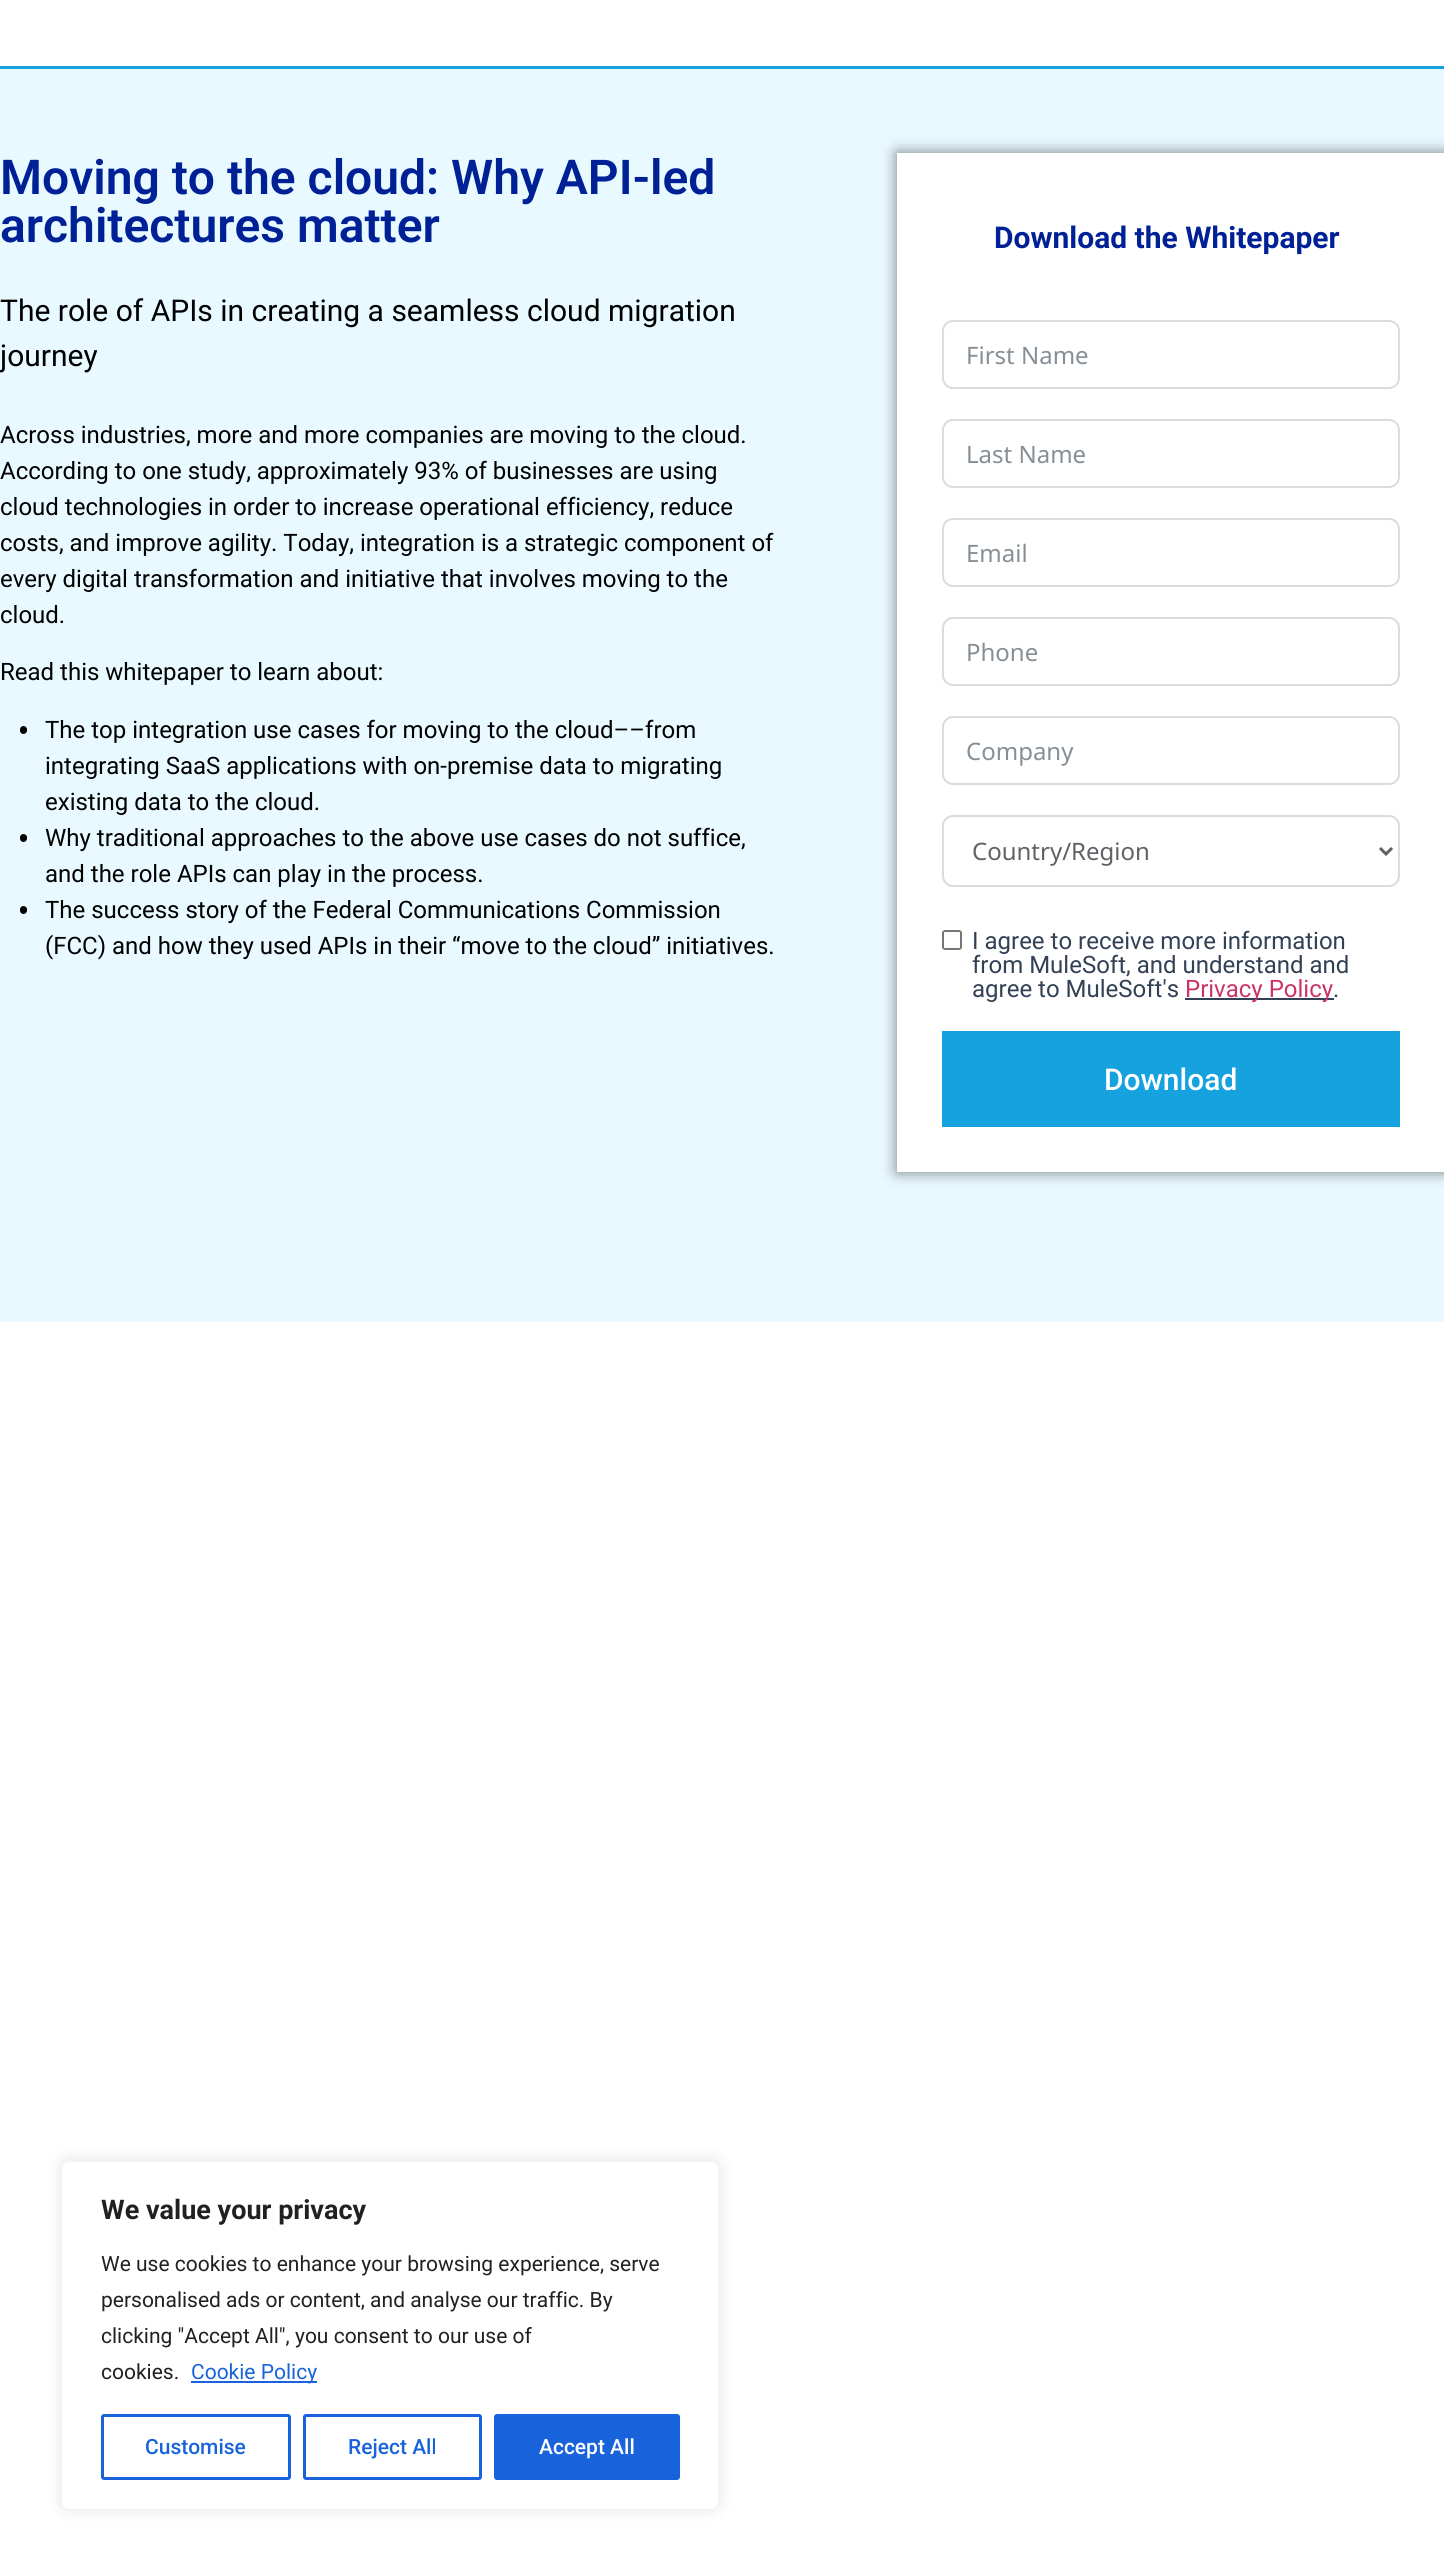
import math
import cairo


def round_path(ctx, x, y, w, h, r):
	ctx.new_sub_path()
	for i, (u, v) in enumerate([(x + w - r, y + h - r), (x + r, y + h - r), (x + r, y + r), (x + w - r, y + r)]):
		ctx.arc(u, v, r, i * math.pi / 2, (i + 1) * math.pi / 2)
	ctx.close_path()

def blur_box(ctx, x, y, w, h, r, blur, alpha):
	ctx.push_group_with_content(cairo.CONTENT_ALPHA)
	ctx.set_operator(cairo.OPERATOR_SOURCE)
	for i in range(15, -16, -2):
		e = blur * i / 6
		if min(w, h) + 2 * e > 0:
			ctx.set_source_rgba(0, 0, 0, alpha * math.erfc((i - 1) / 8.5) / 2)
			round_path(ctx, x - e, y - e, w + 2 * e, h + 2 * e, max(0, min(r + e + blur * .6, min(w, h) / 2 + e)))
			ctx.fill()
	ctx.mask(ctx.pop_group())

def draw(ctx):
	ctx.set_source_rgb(1, 1, 1)
	ctx.paint()
	ctx.set_source_rgb(0.086, 0.635, 0.875)
	ctx.rectangle(0, 66, 1444, 3)
	ctx.fill()
	ctx.set_source_rgb(0.91, 0.973, 1)
	ctx.rectangle(0, 69, 1444, 1253)
	ctx.fill()
	ctx.select_font_face('Roboto SemiBold')
	ctx.set_font_size(48)
	ctx.set_source_rgb(0, 0.129, 0.588)
	ctx.move_to(0, 194)
	ctx.show_text('Moving to the cloud: Why API-led')
	ctx.move_to(0, 242)
	ctx.show_text('architectures matter')
	ctx.select_font_face('Roboto')
	ctx.set_font_size(30)
	ctx.set_source_rgb(0, 0, 0)
	ctx.move_to(0, 321)
	ctx.show_text('The role of APIs in creating a seamless cloud migration')
	ctx.move_to(0, 366)
	ctx.show_text('journey')
	ctx.set_font_size(24)
	for x, y, s in [
		(0, 443, 'Across industries, more and more companies are moving to the cloud.'),
		(0, 479, 'According to one study, approximately 93% of businesses are using'),
		(0, 515, 'cloud technologies in order to increase operational efficiency, reduce'),
		(0, 551, 'costs, and improve agility. Today, integration is a strategic component of'),
		(0, 587, 'every digital transformation and initiative that involves moving to the'),
		(0, 623, 'cloud.'),
		(0, 680, 'Read this whitepaper to learn about:'),
	]:
		ctx.move_to(x, y)
		ctx.show_text(s)
	round_path(ctx, 20, 726, 7, 8, 3.5)
	ctx.fill()
	for x, y, s in [
		(45, 738, 'The top integration use cases for moving to the cloud––from'),
		(45, 774, 'integrating SaaS applications with on-premise data to migrating'),
		(45, 810, 'existing data to the cloud.'),
	]:
		ctx.move_to(x, y)
		ctx.show_text(s)
	round_path(ctx, 20, 834, 7, 8, 3.5)
	ctx.fill()
	ctx.move_to(45, 846)
	ctx.show_text('Why traditional approaches to the above use cases do not suffice,')
	ctx.move_to(45, 882)
	ctx.show_text('and the role APIs can play in the process.')
	round_path(ctx, 20, 906, 7, 8, 3.5)
	ctx.fill()
	ctx.move_to(45, 918)
	ctx.show_text('The success story of the Federal Communications Commission')
	ctx.move_to(45, 954)
	ctx.show_text('(FCC) and how they used APIs in their “move to the cloud” initiatives.')
	ctx.set_source_rgb(0, 0, 0)
	blur_box(ctx, 897, 153, 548, 1019, 0, 7.5, 0.5)
	ctx.set_source_rgb(1, 1, 1)
	ctx.rectangle(897, 153, 547, 1019)
	ctx.fill()
	ctx.select_font_face('Roboto', cairo.FONT_SLANT_NORMAL, cairo.FONT_WEIGHT_BOLD)
	ctx.set_font_size(30)
	ctx.set_source_rgb(0, 0.129, 0.588)
	ctx.move_to(994, 248)
	ctx.show_text('Download the Whitepaper')
	round_path(ctx, 943, 321, 456, 67, 10)
	ctx.set_source_rgb(0.855, 0.859, 0.867)
	ctx.stroke()
	ctx.select_font_face('Noto Sans')
	ctx.set_font_size(24)
	ctx.set_source_rgb(0.525, 0.557, 0.588)
	ctx.move_to(966, 364)
	ctx.show_text('First Name')
	round_path(ctx, 943, 420, 456, 67, 10)
	ctx.set_source_rgb(0.855, 0.859, 0.867)
	ctx.stroke()
	ctx.set_source_rgb(0.525, 0.557, 0.588)
	ctx.move_to(966, 463)
	ctx.show_text('Last Name')
	round_path(ctx, 943, 519, 456, 67, 10)
	ctx.set_source_rgb(0.855, 0.859, 0.867)
	ctx.stroke()
	ctx.set_source_rgb(0.525, 0.557, 0.588)
	ctx.move_to(966, 562)
	ctx.show_text('Email')
	round_path(ctx, 943, 618, 456, 67, 10)
	ctx.set_source_rgb(0.855, 0.859, 0.867)
	ctx.stroke()
	ctx.set_source_rgb(0.525, 0.557, 0.588)
	ctx.move_to(966, 661)
	ctx.show_text('Phone')
	round_path(ctx, 943, 717, 456, 67, 10)
	ctx.set_source_rgb(0.855, 0.859, 0.867)
	ctx.stroke()
	ctx.set_source_rgb(0.525, 0.557, 0.588)
	ctx.move_to(966, 760)
	ctx.show_text('Company')
	round_path(ctx, 943, 816, 456, 70, 10)
	ctx.set_source_rgb(0.855, 0.859, 0.867)
	ctx.stroke()
	ctx.new_path()
	ctx.move_to(1380, 848)
	ctx.line_to(1386, 854)
	ctx.line_to(1392, 848)
	ctx.set_source_rgb(0.376, 0.384, 0.4)
	ctx.set_line_width(3)
	ctx.stroke()
	ctx.move_to(972, 860)
	ctx.show_text('Country/Region')
	round_path(ctx, 943, 931, 18, 18, 2)
	ctx.set_source_rgb(0.463, 0.463, 0.463)
	ctx.set_line_width(2)
	ctx.stroke()
	ctx.select_font_face('Roboto')
	ctx.set_source_rgb(0.2, 0.255, 0.333)
	for x, y, s in [
		(972, 949, 'I agree to receive more information'),
		(972, 973, 'from MuleSoft, and understand and'),
		(972, 997, 'agree to MuleSoft\'s'),
	]:
		ctx.move_to(x, y)
		ctx.show_text(s)
	ctx.rectangle(1185, 998, 149, 2)
	ctx.fill()
	ctx.set_source_rgb(0.8, 0.2, 0.4)
	ctx.move_to(1185, 997)
	ctx.show_text('Privacy Policy')
	ctx.set_source_rgb(0.2, 0.255, 0.333)
	ctx.move_to(1333, 997)
	ctx.show_text('.')
	ctx.set_source_rgb(0.086, 0.635, 0.875)
	ctx.rectangle(942, 1031, 458, 96)
	ctx.fill()
	ctx.select_font_face('Roboto Medium')
	ctx.set_font_size(30)
	ctx.set_source_rgb(1, 1, 1)
	ctx.move_to(1104, 1090)
	ctx.show_text('Download')
	ctx.set_source_rgb(0.675, 0.671, 0.671)
	blur_box(ctx, 60, 2159, 660, 351, 9, 7.5, 0.3)
	ctx.set_source_rgb(1, 1, 1)
	round_path(ctx, 61, 2161, 658, 349, 8)
	ctx.fill_preserve()
	ctx.set_source_rgb(0.957, 0.957, 0.957)
	ctx.stroke()
	ctx.select_font_face('Roboto', cairo.FONT_SLANT_NORMAL, cairo.FONT_WEIGHT_BOLD)
	ctx.set_font_size(27)
	ctx.set_source_rgb(0.129, 0.129, 0.129)
	ctx.move_to(101, 2219)
	ctx.show_text('We value your privacy')
	ctx.select_font_face('Roboto')
	ctx.set_font_size(21)
	for x, y, s in [
		(101, 2271, 'We use cookies to enhance your browsing experience, serve'),
		(101, 2307, 'personalised ads or content, and analyse our traffic. By'),
		(101, 2343, 'clicking "Accept All", you consent to our use of'),
		(101, 2379, 'cookies.'),
	]:
		ctx.move_to(x, y)
		ctx.show_text(s)
	ctx.set_source_rgb(0.094, 0.388, 0.863)
	ctx.rectangle(191, 2381, 126, 2)
	ctx.fill()
	ctx.move_to(191, 2379)
	ctx.show_text('Cookie Policy')
	round_path(ctx, 102.5, 2415.5, 187, 63, 1.5)
	ctx.set_line_width(3)
	ctx.stroke()
	ctx.select_font_face('Roboto Medium')
	ctx.move_to(145, 2454)
	ctx.show_text('Customise')
	round_path(ctx, 304.5, 2415.5, 176, 63, 1.5)
	ctx.stroke()
	ctx.move_to(348, 2454)
	ctx.show_text('Reject All')
	round_path(ctx, 495.5, 2415.5, 183, 63, 1.5)
	ctx.fill_preserve()
	ctx.stroke()
	ctx.set_source_rgb(1, 1, 1)
	ctx.move_to(539, 2454)
	ctx.show_text('Accept All')


surface = cairo.ImageSurface(cairo.FORMAT_RGB24, 1444, 2570)
ctx = cairo.Context(surface)
options = cairo.FontOptions()
options.set_hint_metrics(cairo.HINT_METRICS_OFF)
options.set_hint_style(cairo.HINT_STYLE_NONE)
ctx.set_font_options(options)
ctx.set_miter_limit(4)
draw(ctx)
surface.write_to_png('image.png')
